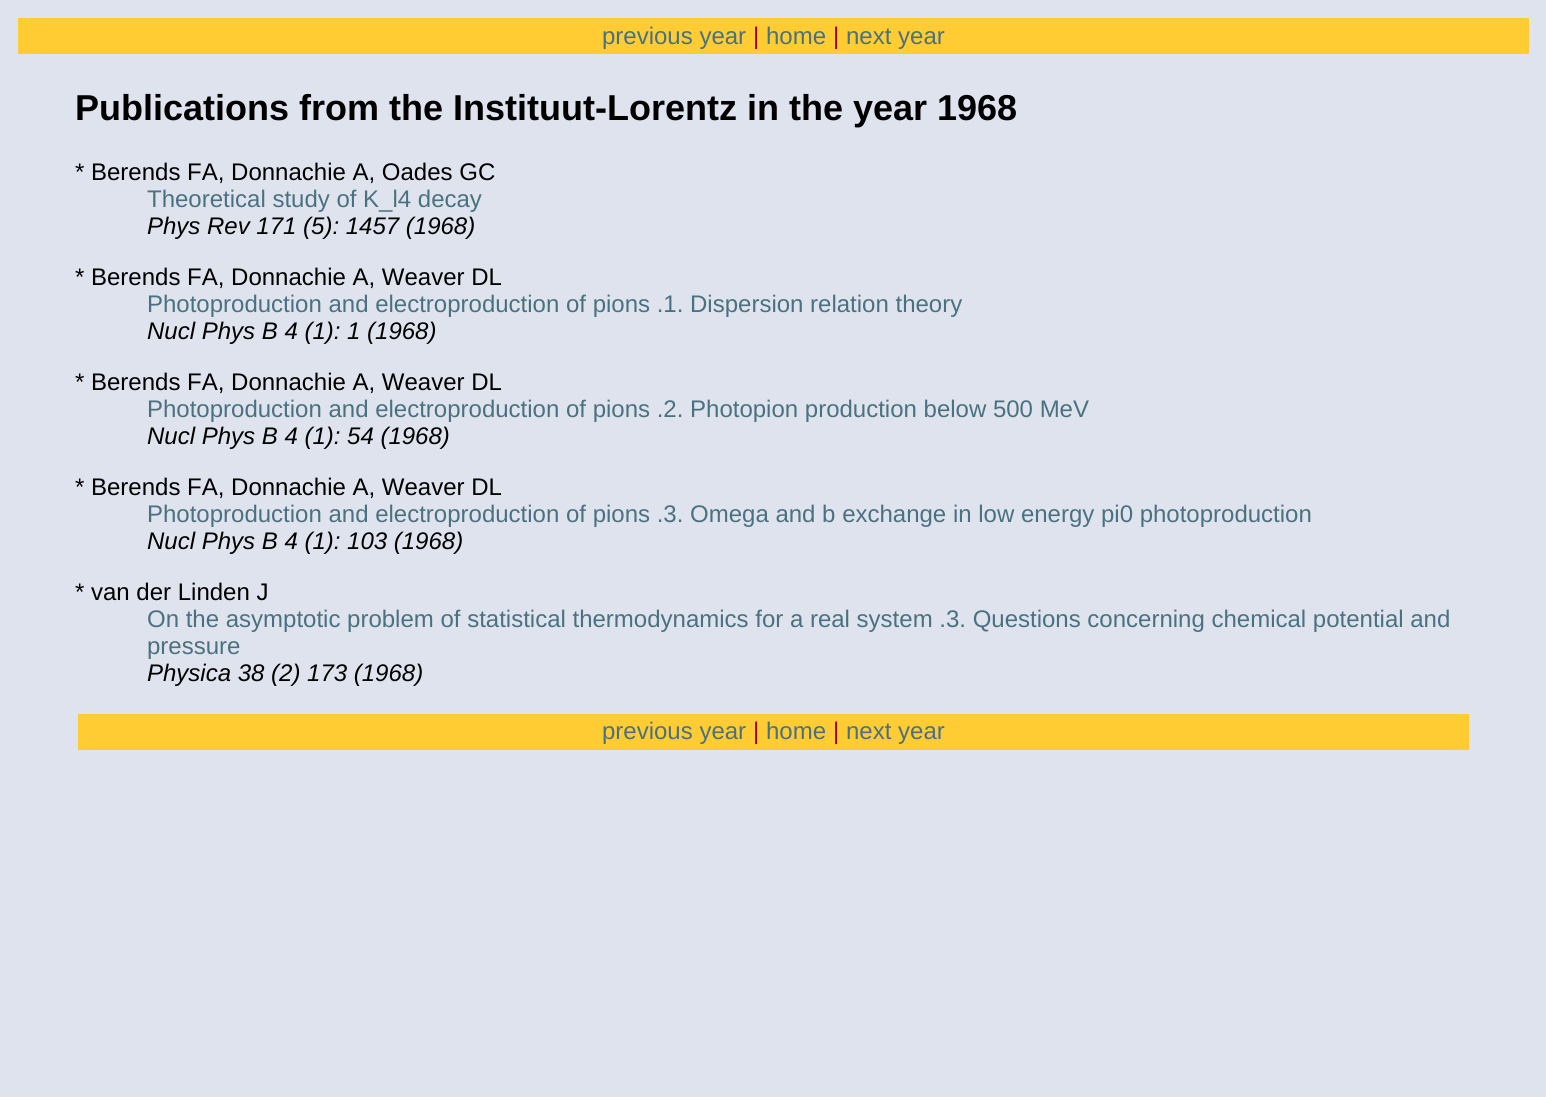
import math
import cairo


def draw(ctx):
	ctx.set_source_rgb(0.875, 0.89, 0.933)
	ctx.paint()
	ctx.set_source_rgb(1, 0.8, 0.2)
	ctx.rectangle(18, 18, 1511, 36)
	ctx.fill()
	ctx.select_font_face('Liberation Sans')
	ctx.set_font_size(24)
	ctx.set_source_rgb(0.29, 0.443, 0.502)
	ctx.move_to(602, 44)
	ctx.show_text('previous year')
	ctx.set_source_rgb(0.6, 0, 0)
	ctx.move_to(753, 44)
	ctx.show_text('|')
	ctx.set_source_rgb(0.29, 0.443, 0.502)
	ctx.move_to(766, 44)
	ctx.show_text('home')
	ctx.set_source_rgb(0.6, 0, 0)
	ctx.move_to(833, 44)
	ctx.show_text('|')
	ctx.set_source_rgb(0.29, 0.443, 0.502)
	ctx.move_to(846, 44)
	ctx.show_text('next year')
	ctx.select_font_face('Liberation Sans', cairo.FONT_SLANT_NORMAL, cairo.FONT_WEIGHT_BOLD)
	ctx.set_font_size(36)
	ctx.set_source_rgb(0, 0, 0)
	ctx.move_to(75, 120)
	ctx.show_text('Publications from the Instituut-Lorentz in the year 1968')
	ctx.select_font_face('Liberation Sans')
	ctx.set_font_size(24)
	ctx.move_to(75, 180)
	ctx.show_text('* Berends FA, Donnachie A, Oades GC')
	ctx.set_source_rgb(0.29, 0.443, 0.502)
	ctx.move_to(147, 207)
	ctx.show_text('Theoretical study of K_l4 decay')
	ctx.select_font_face('Liberation Sans', cairo.FONT_SLANT_ITALIC)
	ctx.set_source_rgb(0, 0, 0)
	ctx.move_to(147, 234)
	ctx.show_text('Phys Rev 171 (5): 1457 (1968)')
	ctx.select_font_face('Liberation Sans')
	ctx.move_to(75, 285)
	ctx.show_text('* Berends FA, Donnachie A, Weaver DL')
	ctx.set_source_rgb(0.29, 0.443, 0.502)
	ctx.move_to(147, 312)
	ctx.show_text('Photoproduction and electroproduction of pions .1. Dispersion relation theory')
	ctx.select_font_face('Liberation Sans', cairo.FONT_SLANT_ITALIC)
	ctx.set_source_rgb(0, 0, 0)
	ctx.move_to(147, 339)
	ctx.show_text('Nucl Phys B 4 (1): 1 (1968)')
	ctx.select_font_face('Liberation Sans')
	ctx.move_to(75, 390)
	ctx.show_text('* Berends FA, Donnachie A, Weaver DL')
	ctx.set_source_rgb(0.29, 0.443, 0.502)
	ctx.move_to(147, 417)
	ctx.show_text('Photoproduction and electroproduction of pions .2. Photopion production below 500 MeV')
	ctx.select_font_face('Liberation Sans', cairo.FONT_SLANT_ITALIC)
	ctx.set_source_rgb(0, 0, 0)
	ctx.move_to(147, 444)
	ctx.show_text('Nucl Phys B 4 (1): 54 (1968)')
	ctx.select_font_face('Liberation Sans')
	ctx.move_to(75, 495)
	ctx.show_text('* Berends FA, Donnachie A, Weaver DL')
	ctx.set_source_rgb(0.29, 0.443, 0.502)
	ctx.move_to(147, 522)
	ctx.show_text('Photoproduction and electroproduction of pions .3. Omega and b exchange in low energy pi0 photoproduction')
	ctx.select_font_face('Liberation Sans', cairo.FONT_SLANT_ITALIC)
	ctx.set_source_rgb(0, 0, 0)
	ctx.move_to(147, 549)
	ctx.show_text('Nucl Phys B 4 (1): 103 (1968)')
	ctx.select_font_face('Liberation Sans')
	ctx.move_to(75, 600)
	ctx.show_text('* van der Linden J')
	ctx.set_source_rgb(0.29, 0.443, 0.502)
	ctx.move_to(147, 627)
	ctx.show_text('On the asymptotic problem of statistical thermodynamics for a real system .3. Questions concerning chemical potential and')
	ctx.move_to(147, 654)
	ctx.show_text('pressure')
	ctx.select_font_face('Liberation Sans', cairo.FONT_SLANT_ITALIC)
	ctx.set_source_rgb(0, 0, 0)
	ctx.move_to(147, 681)
	ctx.show_text('Physica 38 (2) 173 (1968)')
	ctx.set_source_rgb(1, 0.8, 0.2)
	ctx.rectangle(78, 714, 1391, 36)
	ctx.fill()
	ctx.select_font_face('Liberation Sans')
	ctx.set_source_rgb(0.29, 0.443, 0.502)
	ctx.move_to(602, 739)
	ctx.show_text('previous year')
	ctx.set_source_rgb(0.6, 0, 0)
	ctx.move_to(753, 739)
	ctx.show_text('|')
	ctx.set_source_rgb(0.29, 0.443, 0.502)
	ctx.move_to(766, 739)
	ctx.show_text('home')
	ctx.set_source_rgb(0.6, 0, 0)
	ctx.move_to(833, 739)
	ctx.show_text('|')
	ctx.set_source_rgb(0.29, 0.443, 0.502)
	ctx.move_to(846, 739)
	ctx.show_text('next year')


surface = cairo.ImageSurface(cairo.FORMAT_RGB24, 1546, 1097)
ctx = cairo.Context(surface)
options = cairo.FontOptions()
options.set_hint_metrics(cairo.HINT_METRICS_OFF)
options.set_hint_style(cairo.HINT_STYLE_NONE)
ctx.set_font_options(options)
ctx.set_miter_limit(4)
draw(ctx)
surface.write_to_png('image.png')
